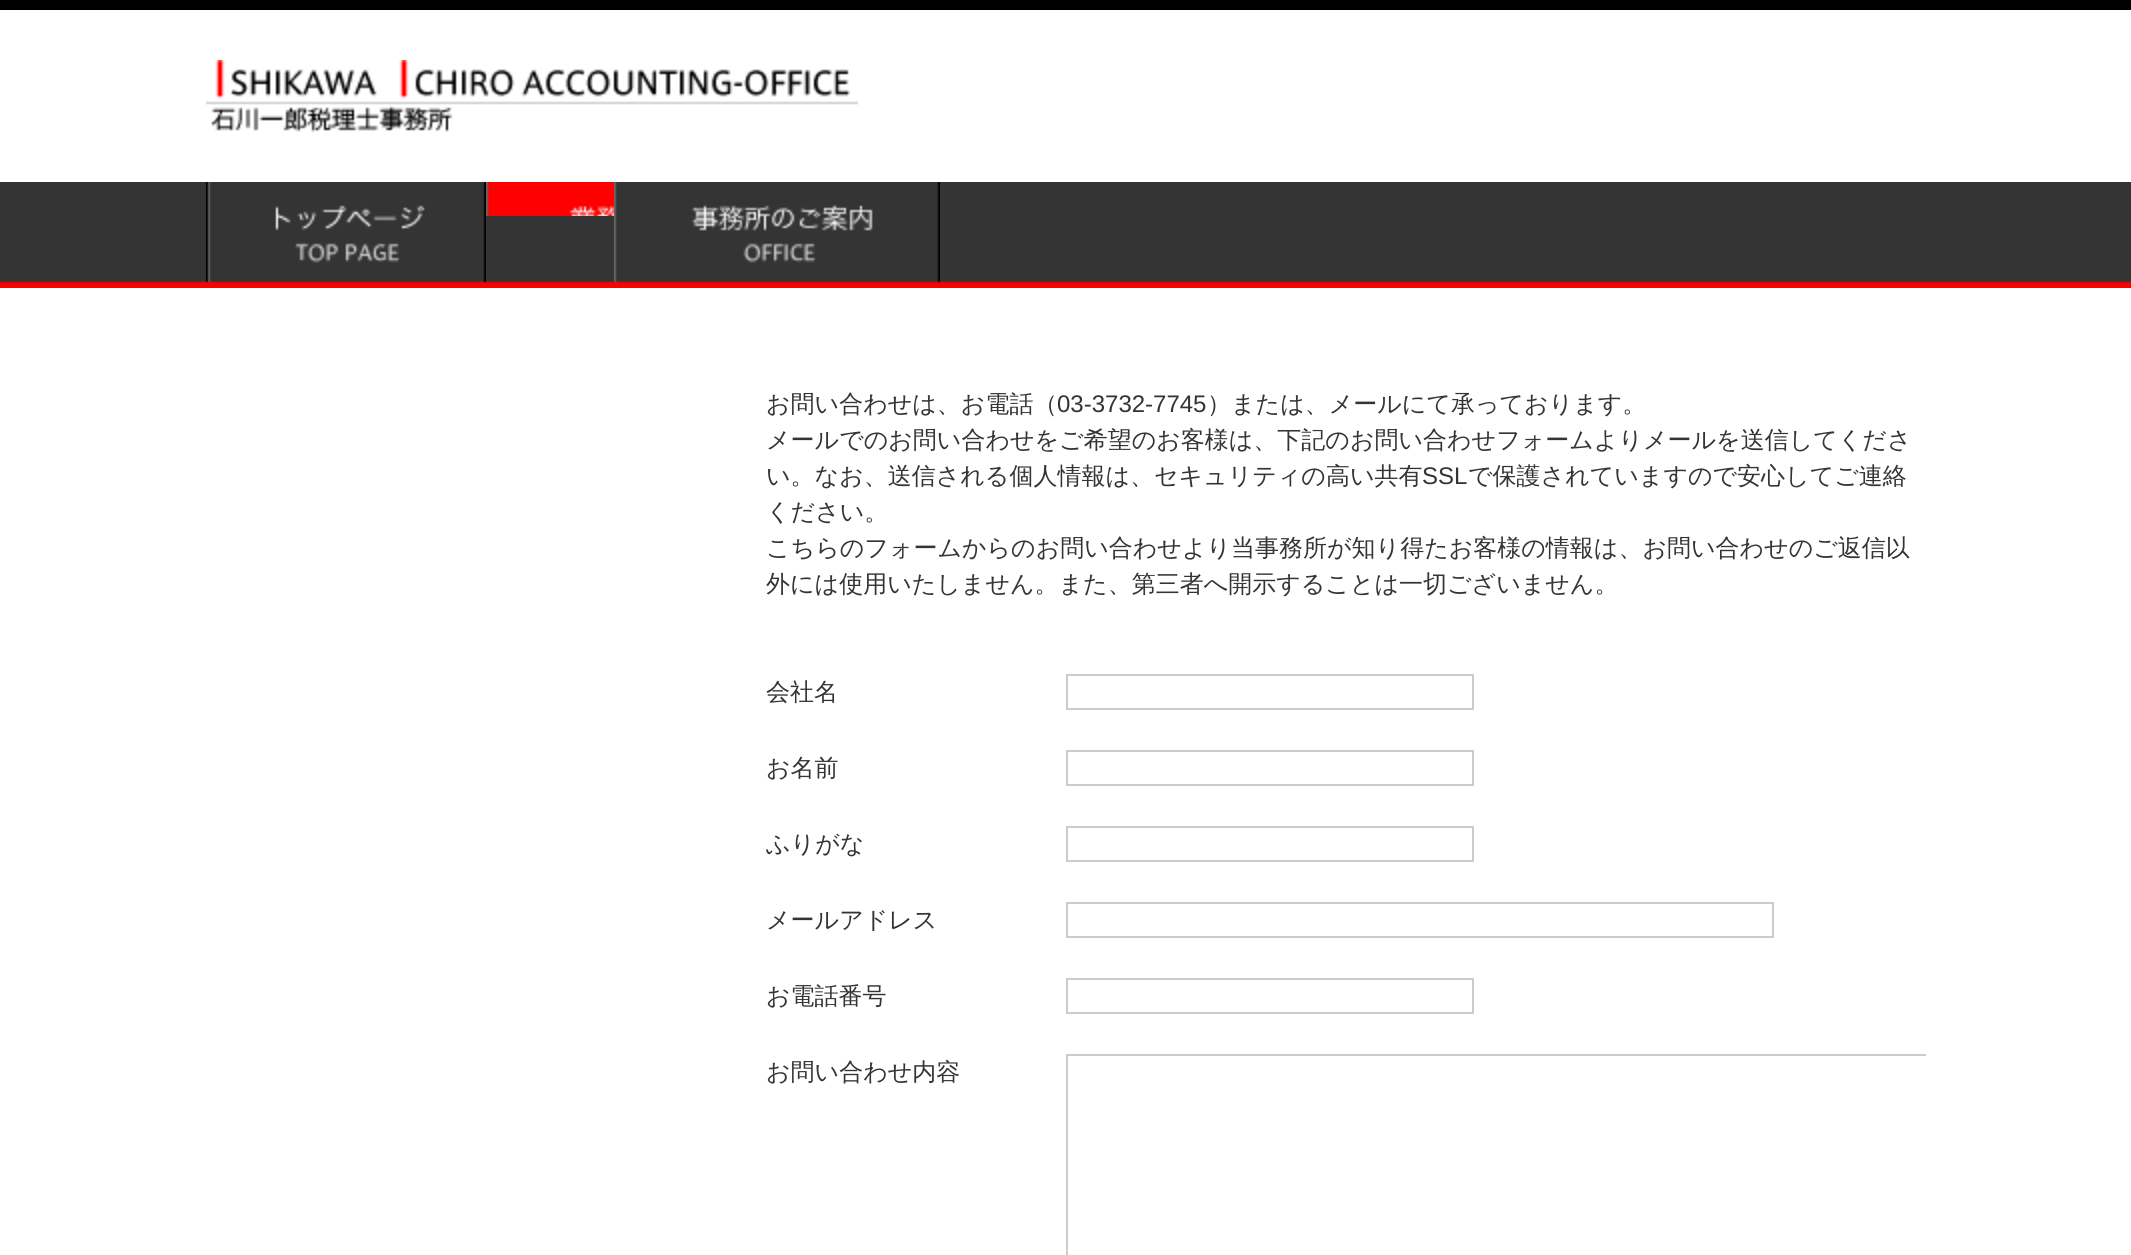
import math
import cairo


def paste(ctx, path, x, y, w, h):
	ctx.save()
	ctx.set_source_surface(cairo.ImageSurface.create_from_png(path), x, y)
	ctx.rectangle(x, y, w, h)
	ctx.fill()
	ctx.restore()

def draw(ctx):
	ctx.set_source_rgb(1, 1, 1)
	ctx.paint()
	paste(ctx, 'media/1.png', 0, 182, 2131, 106)
	ctx.set_source_rgb(0, 0, 0)
	ctx.rectangle(0, 0, 2131, 10)
	ctx.fill()
	paste(ctx, 'media/2.png', 206, 60, 652, 72)
	paste(ctx, 'media/3.png', 206, 182, 280, 106)
	paste(ctx, 'media/4.png', 209, 182, 276, 106)
	paste(ctx, 'media/5.png', 486, 182, 128, 34)
	paste(ctx, 'media/6.png', 614, 182, 326, 101)
	ctx.select_font_face('WenQuanYi Zen Hei Medium')
	ctx.set_font_size(24)
	ctx.set_source_rgb(0.204, 0.204, 0.204)
	ctx.move_to(766, 412)
	ctx.show_text('お問い合わせは、お電話（')
	ctx.select_font_face('Liberation Sans')
	ctx.move_to(1057, 412)
	ctx.show_text('03-3732-7745')
	ctx.select_font_face('WenQuanYi Zen Hei Medium')
	for x, y, s in [
		(1207, 412, '）または、メールにて承っております。'),
		(766, 448, 'メールでのお問い合わせをご希望のお客様は、下記のお問い合わせフォームよりメールを送信してくださ'),
		(766, 484, 'い。なお、送信される個人情報は、セキュリティの高い共有'),
	]:
		ctx.move_to(x, y)
		ctx.show_text(s)
	ctx.select_font_face('Liberation Sans')
	ctx.move_to(1422, 484)
	ctx.show_text('SSL')
	ctx.select_font_face('WenQuanYi Zen Hei Medium')
	for x, y, s in [
		(1468, 484, 'で保護されていますので安心してご連絡'),
		(766, 520, 'ください。'),
		(766, 556, 'こちらのフォームからのお問い合わせより当事務所が知り得たお客様の情報は、お問い合わせのご返信以'),
		(766, 592, '外には使用いたしません。また、第三者へ開示することは一切ございません。'),
		(766, 700, '会社名'),
	]:
		ctx.move_to(x, y)
		ctx.show_text(s)
	ctx.rectangle(1067, 675, 406, 34)
	ctx.set_source_rgb(0.8, 0.8, 0.8)
	ctx.stroke()
	ctx.set_source_rgb(0.204, 0.204, 0.204)
	ctx.move_to(766, 776)
	ctx.show_text('お名前')
	ctx.rectangle(1067, 751, 406, 34)
	ctx.set_source_rgb(0.8, 0.8, 0.8)
	ctx.stroke()
	ctx.set_source_rgb(0.204, 0.204, 0.204)
	ctx.move_to(766, 852)
	ctx.show_text('ふりがな')
	ctx.rectangle(1067, 827, 406, 34)
	ctx.set_source_rgb(0.8, 0.8, 0.8)
	ctx.stroke()
	ctx.set_source_rgb(0.204, 0.204, 0.204)
	ctx.move_to(766, 928)
	ctx.show_text('メールアドレス')
	ctx.rectangle(1067, 903, 706, 34)
	ctx.set_source_rgb(0.8, 0.8, 0.8)
	ctx.stroke()
	ctx.set_source_rgb(0.204, 0.204, 0.204)
	ctx.move_to(766, 1004)
	ctx.show_text('お電話番号')
	ctx.rectangle(1067, 979, 406, 34)
	ctx.set_source_rgb(0.8, 0.8, 0.8)
	ctx.stroke()
	ctx.set_source_rgb(0.204, 0.204, 0.204)
	ctx.move_to(766, 1080)
	ctx.show_text('お問い合わせ内容')
	ctx.save()
	ctx.rectangle(206, 318, 1720, 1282)
	ctx.clip()
	ctx.rectangle(1067, 1055, 866, 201)
	ctx.set_source_rgb(0.8, 0.8, 0.8)
	ctx.stroke()
	ctx.restore()


surface = cairo.ImageSurface(cairo.FORMAT_RGB24, 2131, 1255)
ctx = cairo.Context(surface)
options = cairo.FontOptions()
options.set_hint_metrics(cairo.HINT_METRICS_OFF)
options.set_hint_style(cairo.HINT_STYLE_NONE)
ctx.set_font_options(options)
ctx.set_miter_limit(4)
draw(ctx)
surface.write_to_png('image.png')
